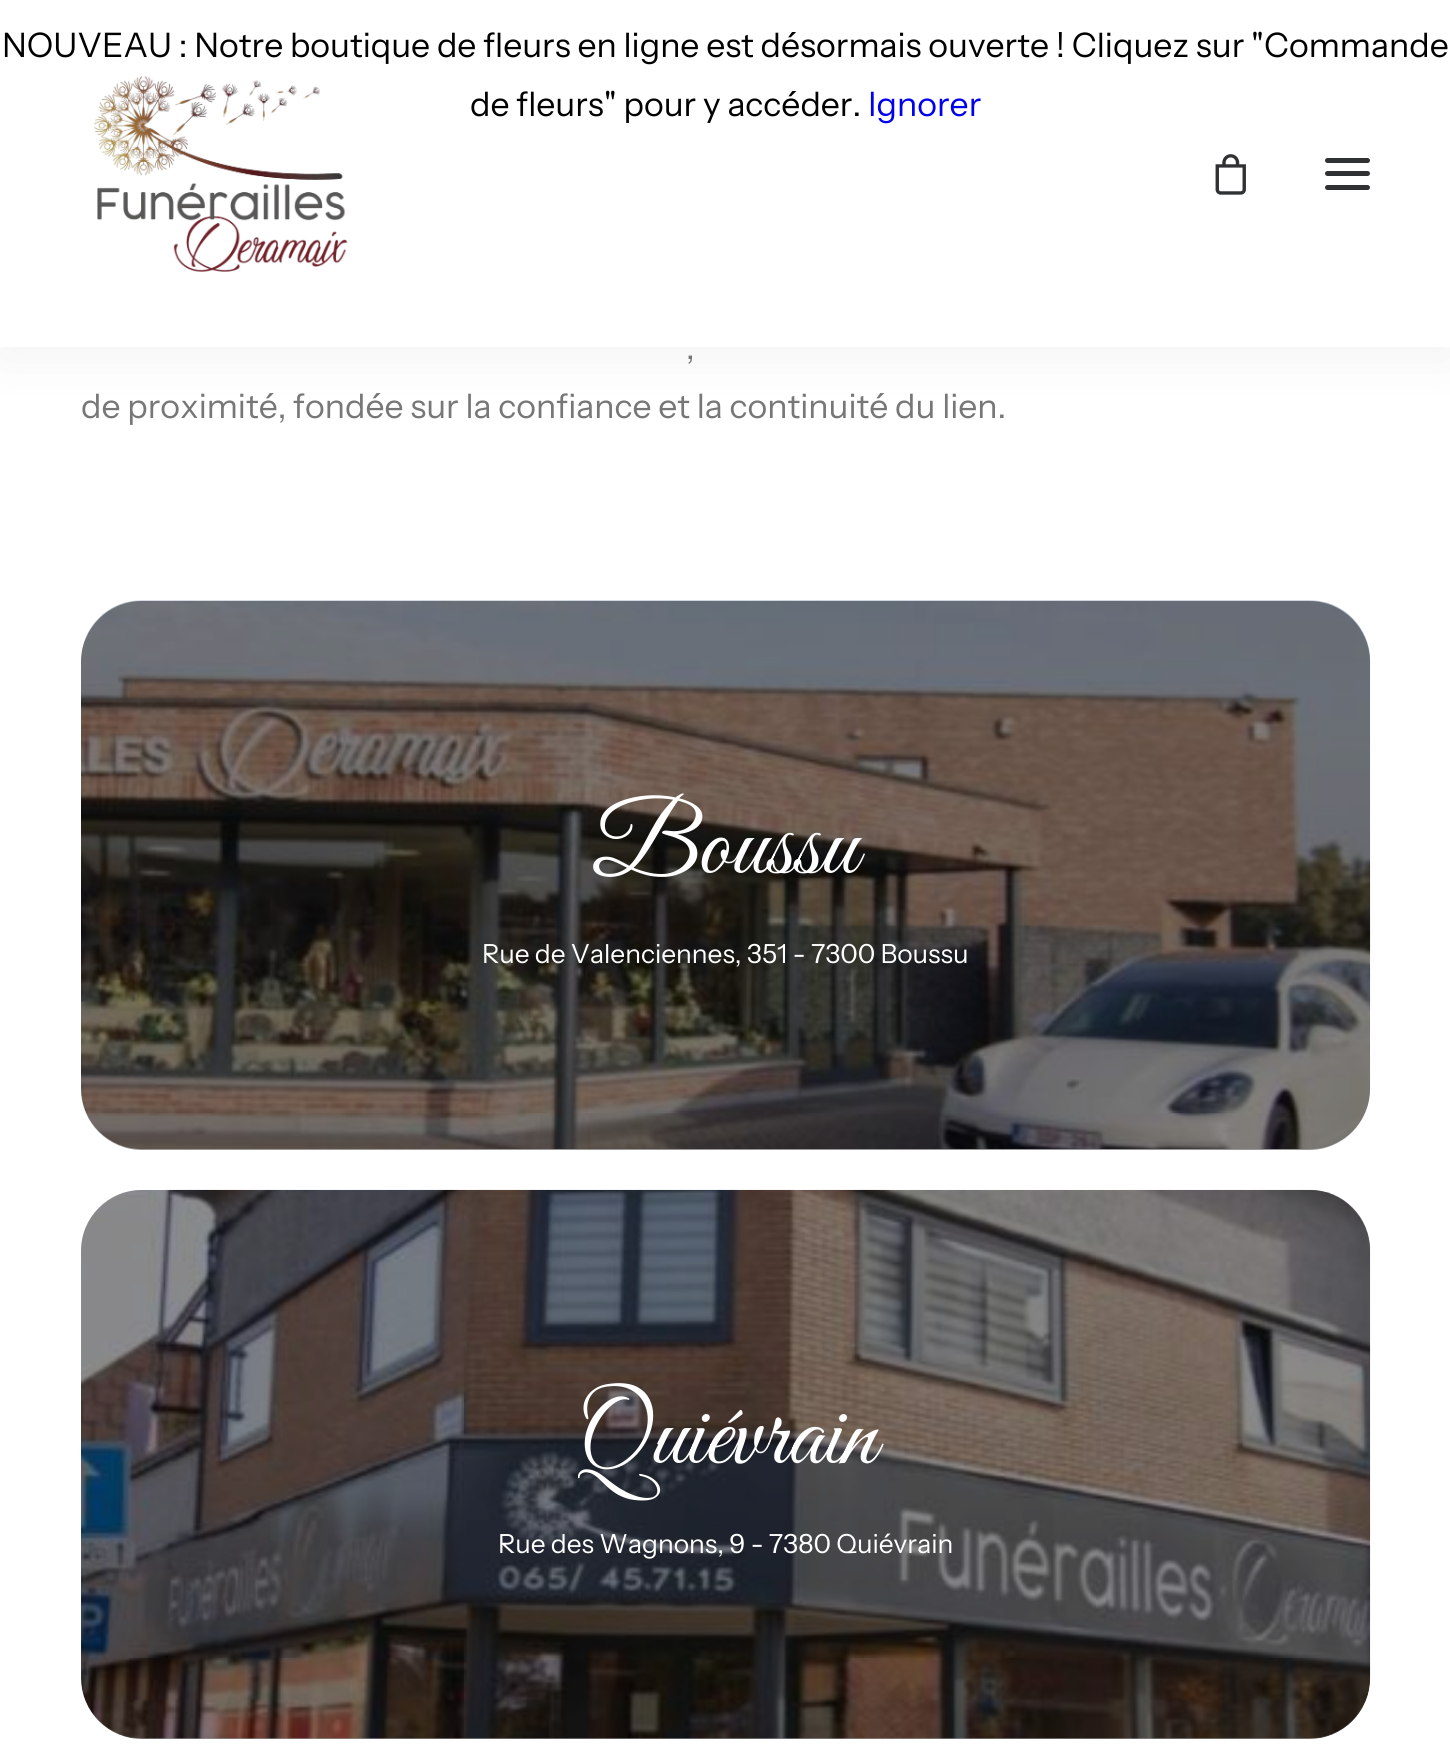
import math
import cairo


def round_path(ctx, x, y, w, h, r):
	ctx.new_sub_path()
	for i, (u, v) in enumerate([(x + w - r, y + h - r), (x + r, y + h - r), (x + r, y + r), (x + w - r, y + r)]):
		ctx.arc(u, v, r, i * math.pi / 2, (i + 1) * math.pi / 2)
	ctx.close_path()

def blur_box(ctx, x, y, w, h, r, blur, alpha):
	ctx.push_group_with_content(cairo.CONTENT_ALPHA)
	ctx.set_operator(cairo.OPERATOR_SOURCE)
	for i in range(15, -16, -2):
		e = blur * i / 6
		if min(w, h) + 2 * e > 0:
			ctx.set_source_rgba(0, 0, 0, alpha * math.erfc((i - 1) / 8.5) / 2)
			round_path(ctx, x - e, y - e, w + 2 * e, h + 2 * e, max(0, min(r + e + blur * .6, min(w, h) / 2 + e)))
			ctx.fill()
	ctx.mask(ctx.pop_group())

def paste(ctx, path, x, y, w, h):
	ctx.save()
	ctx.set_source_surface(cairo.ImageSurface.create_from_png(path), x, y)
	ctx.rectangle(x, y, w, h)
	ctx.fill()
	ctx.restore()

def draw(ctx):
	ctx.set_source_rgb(1, 1, 1)
	ctx.paint()
	ctx.set_source_rgb(0, 0, 0)
	blur_box(ctx, 0, 0, 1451, 347, 0, 34, 0.07)
	ctx.set_source_rgb(1, 1, 1)
	ctx.rectangle(0, 0, 1450, 347)
	ctx.fill()
	ctx.select_font_face('Instrument Sans')
	ctx.set_font_size(33.75)
	ctx.set_source_rgb(0, 0, 0)
	ctx.move_to(2, 57)
	ctx.show_text('NOUVEAU : Notre boutique de fleurs en ligne est désormais ouverte ! Cliquez sur "Commande')
	ctx.move_to(470, 116)
	ctx.show_text('de fleurs" pour y accéder.')
	ctx.set_source_rgb(0, 0, 0.933)
	ctx.move_to(868, 116)
	ctx.show_text('Ignorer')
	paste(ctx, 'media/1.png', 94, 75, 254, 197)
	paste(ctx, 'media/2.png', 1215, 154, 31, 41)
	ctx.set_source_rgb(0.188, 0.192, 0.2)
	round_path(ctx, 1325, 171, 45, 5, 2.5)
	ctx.fill()
	round_path(ctx, 1325, 158, 45, 5, 2.5)
	ctx.fill()
	round_path(ctx, 1325, 185, 45, 5, 2.5)
	ctx.fill()
	ctx.set_source_rgb(0.467, 0.467, 0.467)
	ctx.move_to(686, 359)
	ctx.show_text(',')
	ctx.move_to(81, 418)
	ctx.show_text('de proximité, fondée sur la confiance et la continuité du lien.')
	paste(ctx, 'media/3.png', 81, 600, 1290, 549)
	ctx.set_source_rgba(0, 0, 0, 0.41)
	round_path(ctx, 81, 601, 1289, 549, 61)
	ctx.fill()
	ctx.select_font_face('Great Vibes')
	ctx.set_font_size(101)
	ctx.set_source_rgb(1, 1, 1)
	ctx.move_to(592, 873)
	ctx.show_text('Boussu')
	ctx.select_font_face('Instrument Sans')
	ctx.set_font_size(26.3)
	ctx.move_to(482, 963)
	ctx.show_text('Rue de Valenciennes, 351 - 7300 Boussu')
	paste(ctx, 'media/4.png', 81, 1189, 1290, 550)
	ctx.set_source_rgba(0, 0, 0, 0.4)
	round_path(ctx, 81, 1190, 1289, 549, 61)
	ctx.fill()
	ctx.select_font_face('Great Vibes')
	ctx.set_font_size(101)
	ctx.set_source_rgb(1, 1, 1)
	ctx.move_to(575, 1463)
	ctx.show_text('Quiévrain')
	ctx.select_font_face('Instrument Sans')
	ctx.set_font_size(26.3)
	ctx.move_to(498, 1553)
	ctx.show_text('Rue des Wagnons, 9 - 7380 Quiévrain')


surface = cairo.ImageSurface(cairo.FORMAT_RGB24, 1450, 1746)
ctx = cairo.Context(surface)
options = cairo.FontOptions()
options.set_hint_metrics(cairo.HINT_METRICS_OFF)
options.set_hint_style(cairo.HINT_STYLE_NONE)
ctx.set_font_options(options)
ctx.set_miter_limit(4)
draw(ctx)
surface.write_to_png('image.png')
